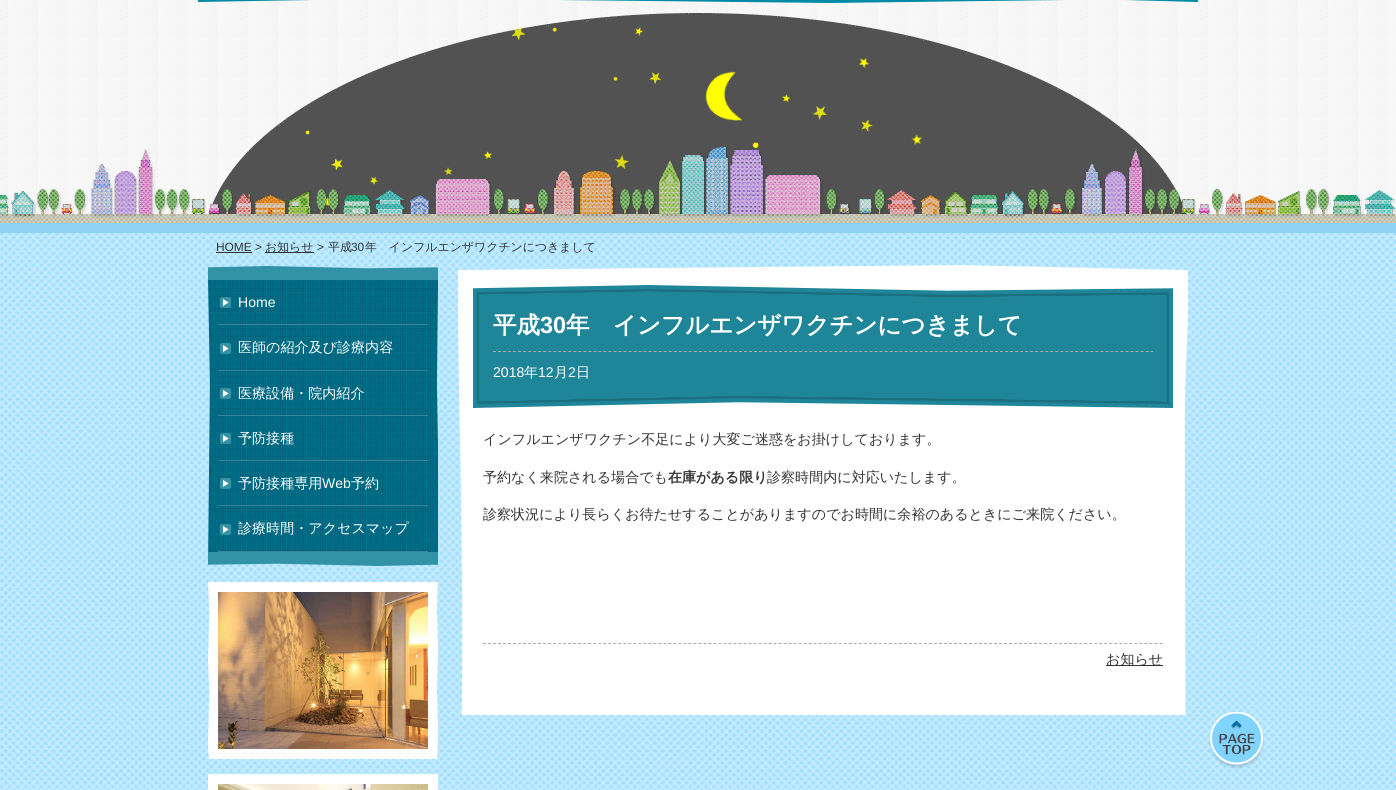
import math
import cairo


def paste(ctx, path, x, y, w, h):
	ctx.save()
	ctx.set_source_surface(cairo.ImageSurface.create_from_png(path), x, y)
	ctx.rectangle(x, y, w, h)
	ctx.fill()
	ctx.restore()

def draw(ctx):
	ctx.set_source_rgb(1, 1, 1)
	ctx.paint()
	paste(ctx, 'media/1.png', 0, 0, 1396, 200)
	paste(ctx, 'media/2.png', 198, 0, 1000, 3)
	paste(ctx, 'media/3.png', 0, 13, 1396, 210)
	paste(ctx, 'media/4.png', 0, 233, 1396, 557)
	ctx.set_source_rgb(0.569, 0.824, 0.949)
	ctx.rectangle(0, 223, 1396, 10)
	ctx.fill()
	ctx.select_font_face('Liberation Sans')
	ctx.set_font_size(11.9)
	ctx.set_source_rgb(0.2, 0.2, 0.2)
	ctx.move_to(216, 251)
	ctx.show_text('HOME >')
	ctx.rectangle(216, 252, 36, 1)
	ctx.fill()
	ctx.rectangle(265, 252, 49, 1)
	ctx.fill()
	ctx.select_font_face('WenQuanYi Zen Hei Medium')
	ctx.move_to(265, 251)
	ctx.show_text('お知らせ')
	ctx.select_font_face('Liberation Sans')
	ctx.move_to(317, 251)
	ctx.show_text('>')
	ctx.select_font_face('WenQuanYi Zen Hei Medium')
	ctx.move_to(328, 251)
	ctx.show_text('平成')
	ctx.select_font_face('Liberation Sans')
	ctx.move_to(351, 251)
	ctx.show_text('30')
	ctx.select_font_face('WenQuanYi Zen Hei Medium')
	ctx.move_to(365, 251)
	ctx.show_text('年　インフルエンザワクチンにつきまして')
	paste(ctx, 'media/5.png', 208, 266, 230, 14)
	paste(ctx, 'media/6.png', 208, 280, 230, 272)
	ctx.set_source_rgb(0.239, 0.51, 0.6)
	ctx.rectangle(218, 324, 210, 1)
	ctx.fill()
	paste(ctx, 'media/7.png', 220, 297, 11, 11)
	ctx.select_font_face('Liberation Sans')
	ctx.set_font_size(14.05)
	ctx.set_source_rgb(1, 1, 1)
	ctx.move_to(238, 307)
	ctx.show_text('Home')
	ctx.set_source_rgb(0.239, 0.51, 0.6)
	ctx.rectangle(218, 370, 210, 1)
	ctx.fill()
	paste(ctx, 'media/8.png', 220, 343, 11, 11)
	ctx.select_font_face('WenQuanYi Zen Hei Medium')
	ctx.set_source_rgb(1, 1, 1)
	ctx.move_to(238, 352)
	ctx.show_text('医師の紹介及び診療内容')
	ctx.set_source_rgb(0.239, 0.51, 0.6)
	ctx.rectangle(218, 415, 210, 1)
	ctx.fill()
	paste(ctx, 'media/9.png', 220, 388, 11, 11)
	ctx.set_source_rgb(1, 1, 1)
	ctx.move_to(238, 398)
	ctx.show_text('医療設備・院内紹介')
	ctx.set_source_rgb(0.239, 0.51, 0.6)
	ctx.rectangle(218, 460, 210, 1)
	ctx.fill()
	paste(ctx, 'media/10.png', 220, 433, 11, 11)
	ctx.set_source_rgb(1, 1, 1)
	ctx.move_to(238, 443)
	ctx.show_text('予防接種')
	ctx.set_source_rgb(0.239, 0.51, 0.6)
	ctx.rectangle(218, 505, 210, 1)
	ctx.fill()
	paste(ctx, 'media/11.png', 220, 478, 11, 11)
	ctx.set_source_rgb(1, 1, 1)
	ctx.move_to(238, 488)
	ctx.show_text('予防接種専用')
	ctx.select_font_face('Liberation Sans')
	ctx.move_to(322, 488)
	ctx.show_text('Web')
	ctx.select_font_face('WenQuanYi Zen Hei Medium')
	ctx.move_to(351, 488)
	ctx.show_text('予約')
	ctx.set_source_rgb(0.239, 0.51, 0.6)
	ctx.rectangle(218, 551, 210, 1)
	ctx.fill()
	paste(ctx, 'media/12.png', 220, 524, 11, 11)
	ctx.set_source_rgb(1, 1, 1)
	ctx.move_to(238, 533)
	ctx.show_text('診療時間・アクセスマップ')
	paste(ctx, 'media/13.png', 208, 552, 230, 14)
	paste(ctx, 'media/14.png', 208, 582, 230, 177)
	paste(ctx, 'media/15.png', 218, 592, 210, 157)
	ctx.rectangle(208, 774, 230, 16)
	ctx.fill()
	paste(ctx, 'media/16.png', 218, 784, 210, 6)
	paste(ctx, 'media/17.png', 458, 270, 730, 445)
	paste(ctx, 'media/18.png', 470, 265, 713, 5)
	paste(ctx, 'media/19.png', 473, 285, 700, 123)
	ctx.select_font_face('WenQuanYi Zen Hei', cairo.FONT_SLANT_NORMAL, cairo.FONT_WEIGHT_BOLD)
	ctx.set_font_size(23.5)
	ctx.move_to(493, 333)
	ctx.show_text('平成')
	ctx.select_font_face('Liberation Sans', cairo.FONT_SLANT_NORMAL, cairo.FONT_WEIGHT_BOLD)
	ctx.move_to(540, 333)
	ctx.show_text('30')
	ctx.select_font_face('WenQuanYi Zen Hei', cairo.FONT_SLANT_NORMAL, cairo.FONT_WEIGHT_BOLD)
	ctx.move_to(566, 333)
	ctx.show_text('年　インフルエンザワクチンにつきまして')
	ctx.new_path()
	ctx.move_to(493, 351.5)
	ctx.line_to(1153, 351.5)
	ctx.set_source_rgb(0.667, 0.667, 0.667)
	ctx.set_line_width(1)
	ctx.set_dash([3, 2.02])
	ctx.stroke()
	ctx.select_font_face('Liberation Sans')
	ctx.set_font_size(14.05)
	ctx.set_source_rgb(1, 1, 1)
	ctx.move_to(493, 377)
	ctx.show_text('2018')
	ctx.select_font_face('WenQuanYi Zen Hei Medium')
	ctx.move_to(524, 377)
	ctx.show_text('年')
	ctx.select_font_face('Liberation Sans')
	ctx.move_to(538, 377)
	ctx.show_text('12')
	ctx.select_font_face('WenQuanYi Zen Hei Medium')
	ctx.move_to(554, 377)
	ctx.show_text('月')
	ctx.select_font_face('Liberation Sans')
	ctx.move_to(568, 377)
	ctx.show_text('2')
	ctx.select_font_face('WenQuanYi Zen Hei Medium')
	ctx.move_to(576, 377)
	ctx.show_text('日')
	ctx.set_source_rgb(0.2, 0.2, 0.2)
	ctx.move_to(483, 444)
	ctx.show_text('インフルエンザワクチン不足により大変ご迷惑をお掛けしております。')
	ctx.move_to(483, 482)
	ctx.show_text('予約なく来院される場合でも')
	ctx.select_font_face('WenQuanYi Zen Hei', cairo.FONT_SLANT_NORMAL, cairo.FONT_WEIGHT_BOLD)
	ctx.move_to(668, 482)
	ctx.show_text('在庫がある限り')
	ctx.select_font_face('WenQuanYi Zen Hei Medium')
	ctx.move_to(767, 482)
	ctx.show_text('診察時間内に対応いたします。')
	ctx.move_to(483, 519)
	ctx.show_text('診察状況により長らくお待たせすることがありますのでお時間に余裕のあるときにご来院ください。')
	ctx.new_path()
	ctx.move_to(483, 643.5)
	ctx.line_to(1163, 643.5)
	ctx.set_source_rgb(0.667, 0.667, 0.667)
	ctx.set_dash([3, 2.01])
	ctx.stroke()
	ctx.set_source_rgb(0.2, 0.2, 0.2)
	ctx.rectangle(1106, 665, 57, 1)
	ctx.fill()
	ctx.move_to(1106, 664)
	ctx.show_text('お知らせ')
	paste(ctx, 'media/20.png', 1209, 712, 55, 57)


surface = cairo.ImageSurface(cairo.FORMAT_RGB24, 1396, 790)
ctx = cairo.Context(surface)
options = cairo.FontOptions()
options.set_hint_metrics(cairo.HINT_METRICS_OFF)
options.set_hint_style(cairo.HINT_STYLE_NONE)
ctx.set_font_options(options)
ctx.set_miter_limit(4)
draw(ctx)
surface.write_to_png('image.png')
